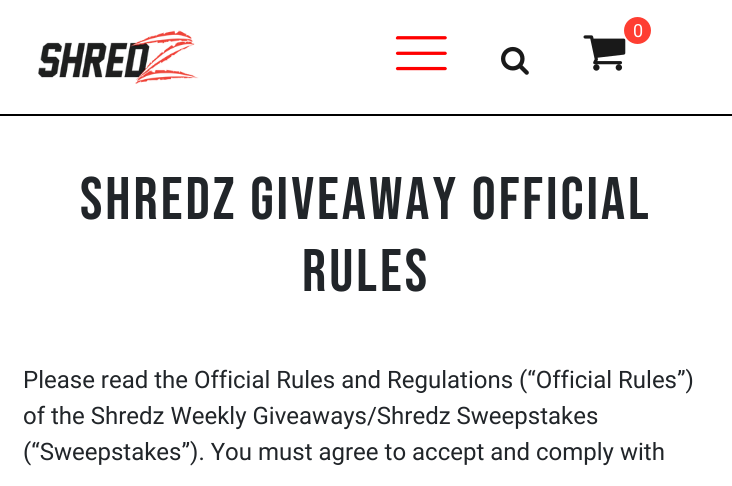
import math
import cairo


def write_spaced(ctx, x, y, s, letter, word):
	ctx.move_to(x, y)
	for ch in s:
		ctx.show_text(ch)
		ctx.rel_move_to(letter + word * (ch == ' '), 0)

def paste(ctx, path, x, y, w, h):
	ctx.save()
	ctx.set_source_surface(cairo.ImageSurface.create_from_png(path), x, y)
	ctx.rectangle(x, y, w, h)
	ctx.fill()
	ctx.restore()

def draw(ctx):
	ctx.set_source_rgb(1, 1, 1)
	ctx.paint()
	paste(ctx, 'media/1.png', 38, 30, 161, 54)
	paste(ctx, 'media/2.png', 395, 36, 52, 35)
	paste(ctx, 'media/3.png', 501, 46, 28, 29)
	paste(ctx, 'media/4.png', 583, 35, 43, 36)
	ctx.set_source_rgb(0.996, 0.243, 0.196)
	ctx.arc(637.5, 30.5, 13.5, 0, 2 * math.pi)
	ctx.fill()
	ctx.select_font_face('Roboto')
	ctx.set_font_size(18)
	ctx.set_source_rgb(1, 1, 1)
	ctx.move_to(633, 37)
	ctx.show_text('0')
	ctx.set_source_rgb(0, 0, 0)
	ctx.rectangle(0, 114, 732, 2)
	ctx.fill()
	ctx.select_font_face('Bebas Neue')
	ctx.set_font_size(60)
	ctx.set_source_rgb(0.129, 0.145, 0.161)
	write_spaced(ctx, 80, 219, 'SHREDZ GIVEAWAY OFFICIAL', 3, 0)
	write_spaced(ctx, 302, 291, 'RULES', 3, 0)
	ctx.select_font_face('Roboto')
	ctx.set_font_size(24)
	for x, y, s in [
		(23, 388, 'Please read the Official Rules and Regulations (“Official Rules”)'),
		(23, 424, 'of the Shredz Weekly Giveaways/Shredz Sweepstakes'),
		(23, 460, '(“Sweepstakes”). You must agree to accept and comply with'),
	]:
		ctx.move_to(x, y)
		ctx.show_text(s)


surface = cairo.ImageSurface(cairo.FORMAT_RGB24, 732, 486)
ctx = cairo.Context(surface)
options = cairo.FontOptions()
options.set_hint_metrics(cairo.HINT_METRICS_OFF)
options.set_hint_style(cairo.HINT_STYLE_NONE)
ctx.set_font_options(options)
ctx.set_miter_limit(4)
draw(ctx)
surface.write_to_png('image.png')
